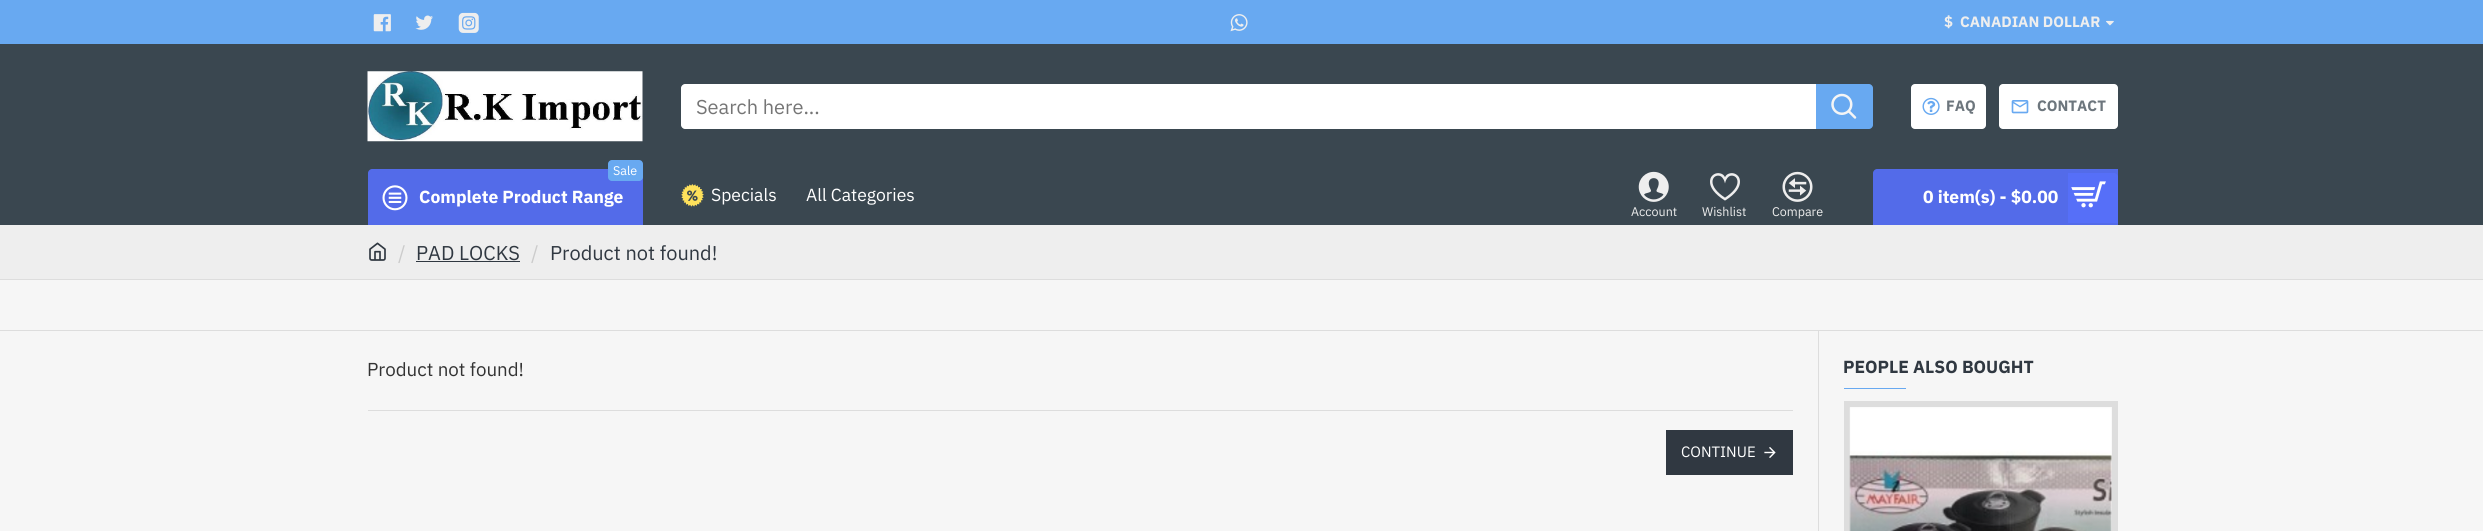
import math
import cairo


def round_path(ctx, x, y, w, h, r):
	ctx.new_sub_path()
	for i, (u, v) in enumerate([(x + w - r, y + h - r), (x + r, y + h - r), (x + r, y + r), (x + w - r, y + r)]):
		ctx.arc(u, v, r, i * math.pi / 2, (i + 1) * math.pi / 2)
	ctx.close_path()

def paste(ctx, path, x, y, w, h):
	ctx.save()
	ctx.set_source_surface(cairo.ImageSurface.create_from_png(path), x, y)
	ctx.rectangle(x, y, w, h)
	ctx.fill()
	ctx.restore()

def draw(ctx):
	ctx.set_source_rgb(0.961, 0.961, 0.961)
	ctx.paint()
	ctx.set_source_rgb(0.227, 0.278, 0.314)
	ctx.rectangle(0, 44, 2483, 181)
	ctx.fill()
	ctx.set_source_rgb(0.408, 0.663, 0.945)
	ctx.rectangle(0, 0, 2483, 44)
	ctx.fill()
	paste(ctx, 'media/1.png', 373, 14, 18, 18)
	paste(ctx, 'media/2.png', 415, 15, 18, 15)
	paste(ctx, 'media/3.png', 458, 12, 21, 21)
	paste(ctx, 'media/4.png', 1230, 14, 18, 18)
	ctx.select_font_face('IBM Plex Sans', cairo.FONT_SLANT_NORMAL, cairo.FONT_WEIGHT_BOLD)
	ctx.set_font_size(15)
	ctx.set_source_rgb(0.933, 0.933, 0.933)
	ctx.move_to(1944, 27)
	ctx.show_text('$')
	ctx.move_to(1960, 27)
	ctx.show_text('CANADIAN DOLLAR')
	paste(ctx, 'media/5.png', 2106, 20, 8, 6)
	paste(ctx, 'media/6.png', 367, 71, 276, 71)
	ctx.set_source_rgb(1, 1, 1)
	ctx.new_path()
	ctx.move_to(685, 84)
	ctx.line_to(1816, 84)
	ctx.line_to(1816, 129)
	ctx.line_to(685, 129)
	ctx.curve_to(683, 129, 681, 127, 681, 125)
	ctx.line_to(681, 88)
	ctx.curve_to(681, 86, 683, 84, 685, 84)
	ctx.close_path()
	ctx.fill()
	ctx.select_font_face('IBM Plex Sans')
	ctx.set_font_size(20)
	ctx.set_source_rgb(0.459, 0.459, 0.459)
	ctx.move_to(696, 114)
	ctx.show_text('Search here...')
	ctx.set_source_rgb(0.408, 0.663, 0.945)
	ctx.new_path()
	ctx.move_to(1816, 84)
	ctx.line_to(1869, 84)
	ctx.curve_to(1871, 84, 1873, 86, 1873, 88)
	ctx.line_to(1873, 125)
	ctx.curve_to(1873, 127, 1871, 129, 1869, 129)
	ctx.line_to(1816, 129)
	ctx.close_path()
	ctx.fill()
	paste(ctx, 'media/7.png', 1831, 93, 26, 26)
	ctx.set_source_rgb(1, 1, 1)
	round_path(ctx, 1911, 84, 75, 45, 4)
	ctx.fill()
	paste(ctx, 'media/8.png', 1922, 97, 18, 18)
	ctx.select_font_face('IBM Plex Sans', cairo.FONT_SLANT_NORMAL, cairo.FONT_WEIGHT_BOLD)
	ctx.set_font_size(15)
	ctx.set_source_rgb(0.427, 0.463, 0.49)
	ctx.move_to(1946, 111)
	ctx.show_text('FAQ')
	ctx.set_source_rgb(1, 1, 1)
	round_path(ctx, 1999, 84, 119, 45, 4)
	ctx.fill()
	paste(ctx, 'media/9.png', 2011, 100, 18, 14)
	ctx.set_source_rgb(0.427, 0.463, 0.49)
	ctx.move_to(2037, 111)
	ctx.show_text('CONTACT')
	ctx.set_source_rgb(0.325, 0.42, 0.914)
	ctx.new_path()
	ctx.move_to(372, 169)
	ctx.line_to(639, 169)
	ctx.curve_to(641, 169, 643, 171, 643, 173)
	ctx.line_to(643, 225)
	ctx.line_to(368, 225)
	ctx.line_to(368, 173)
	ctx.curve_to(368, 171, 370, 169, 372, 169)
	ctx.close_path()
	ctx.fill()
	ctx.set_source_rgb(0.408, 0.663, 0.945)
	round_path(ctx, 608, 160, 35, 21, 4)
	ctx.fill()
	ctx.select_font_face('IBM Plex Sans')
	ctx.set_font_size(12.5)
	ctx.set_source_rgb(1, 1, 1)
	ctx.move_to(613, 175)
	ctx.show_text('Sale')
	paste(ctx, 'media/10.png', 382, 185, 26, 26)
	ctx.select_font_face('IBM Plex Sans', cairo.FONT_SLANT_NORMAL, cairo.FONT_WEIGHT_BOLD)
	ctx.set_font_size(17.5)
	ctx.move_to(419, 203)
	ctx.show_text('Complete Product Range')
	paste(ctx, 'media/11.png', 681, 184, 23, 23)
	ctx.select_font_face('IBM Plex Sans')
	ctx.move_to(711, 201)
	ctx.show_text('Specials')
	ctx.move_to(806, 201)
	ctx.show_text('All Categories')
	ctx.set_source_rgb(0.325, 0.42, 0.914)
	ctx.new_path()
	ctx.move_to(1877, 169)
	ctx.line_to(2118, 169)
	ctx.line_to(2118, 225)
	ctx.line_to(1873, 225)
	ctx.line_to(1873, 173)
	ctx.curve_to(1873, 171, 1875, 169, 1877, 169)
	ctx.close_path()
	ctx.fill()
	ctx.select_font_face('IBM Plex Sans', cairo.FONT_SLANT_NORMAL, cairo.FONT_WEIGHT_BOLD)
	ctx.set_source_rgb(1, 1, 1)
	ctx.move_to(1923, 203)
	ctx.show_text('0 item(s) - $0.00')
	ctx.set_source_rgb(0.337, 0.435, 0.969)
	ctx.new_path()
	ctx.move_to(2068, 173)
	ctx.line_to(2114, 173)
	ctx.curve_to(2116, 173, 2118, 175, 2118, 177)
	ctx.line_to(2118, 223)
	ctx.line_to(2068, 223)
	ctx.close_path()
	ctx.fill()
	paste(ctx, 'media/12.png', 2071, 181, 35, 27)
	paste(ctx, 'media/13.png', 1638, 171, 31, 31)
	ctx.select_font_face('IBM Plex Sans')
	ctx.set_font_size(12.5)
	ctx.set_source_rgb(0.933, 0.933, 0.933)
	ctx.move_to(1631, 216)
	ctx.show_text('Account')
	paste(ctx, 'media/14.png', 1710, 173, 30, 28)
	ctx.move_to(1702, 216)
	ctx.show_text('Wishlist')
	paste(ctx, 'media/15.png', 1782, 171, 31, 31)
	ctx.move_to(1772, 216)
	ctx.show_text('Compare')
	ctx.rectangle(0, 225, 2483, 54)
	ctx.fill()
	ctx.set_source_rgb(0.867, 0.867, 0.867)
	ctx.rectangle(0, 279, 2483, 1)
	ctx.fill()
	paste(ctx, 'media/16.png', 369, 242, 17, 19)
	ctx.set_font_size(20)
	ctx.set_source_rgb(0.8, 0.8, 0.8)
	ctx.move_to(398, 260)
	ctx.show_text('/')
	ctx.set_source_rgb(0.188, 0.22, 0.255)
	ctx.move_to(416, 260)
	ctx.show_text('PAD LOCKS')
	ctx.rectangle(416, 261, 104, 1)
	ctx.fill()
	ctx.set_source_rgb(0.8, 0.8, 0.8)
	ctx.move_to(531, 260)
	ctx.show_text('/')
	ctx.set_source_rgb(0.188, 0.22, 0.255)
	ctx.move_to(550, 260)
	ctx.show_text('Product not found!')
	ctx.set_source_rgb(0.867, 0.867, 0.867)
	ctx.rectangle(0, 330, 2483, 1)
	ctx.fill()
	ctx.set_font_size(18.75)
	ctx.set_source_rgb(0.2, 0.2, 0.2)
	ctx.move_to(367, 376)
	ctx.show_text('Product not found!')
	ctx.set_source_rgb(0.867, 0.867, 0.867)
	ctx.rectangle(368, 410, 1425, 1)
	ctx.fill()
	ctx.set_source_rgb(0.188, 0.22, 0.255)
	ctx.rectangle(1666, 430, 127, 45)
	ctx.fill()
	ctx.set_font_size(15)
	ctx.set_source_rgb(1, 1, 1)
	ctx.move_to(1681, 457)
	ctx.show_text('CONTINUE')
	paste(ctx, 'media/17.png', 1764, 447, 12, 11)
	ctx.set_source_rgb(0.867, 0.867, 0.867)
	ctx.rectangle(1818, 331, 1, 200)
	ctx.fill()
	ctx.select_font_face('IBM Plex Sans', cairo.FONT_SLANT_NORMAL, cairo.FONT_WEIGHT_BOLD)
	ctx.set_font_size(17.5)
	ctx.set_source_rgb(0.188, 0.22, 0.255)
	ctx.move_to(1843, 373)
	ctx.show_text('PEOPLE ALSO BOUGHT')
	ctx.set_source_rgb(0.408, 0.663, 0.945)
	ctx.rectangle(1844, 388, 62, 1)
	ctx.fill()
	ctx.rectangle(1847, 404, 268, 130)
	ctx.set_source_rgb(0.867, 0.867, 0.867)
	ctx.set_line_width(6)
	ctx.stroke()
	paste(ctx, 'media/18.png', 1849, 407, 263, 124)


surface = cairo.ImageSurface(cairo.FORMAT_RGB24, 2483, 531)
ctx = cairo.Context(surface)
options = cairo.FontOptions()
options.set_hint_metrics(cairo.HINT_METRICS_OFF)
options.set_hint_style(cairo.HINT_STYLE_NONE)
ctx.set_font_options(options)
ctx.set_miter_limit(4)
draw(ctx)
surface.write_to_png('image.png')
